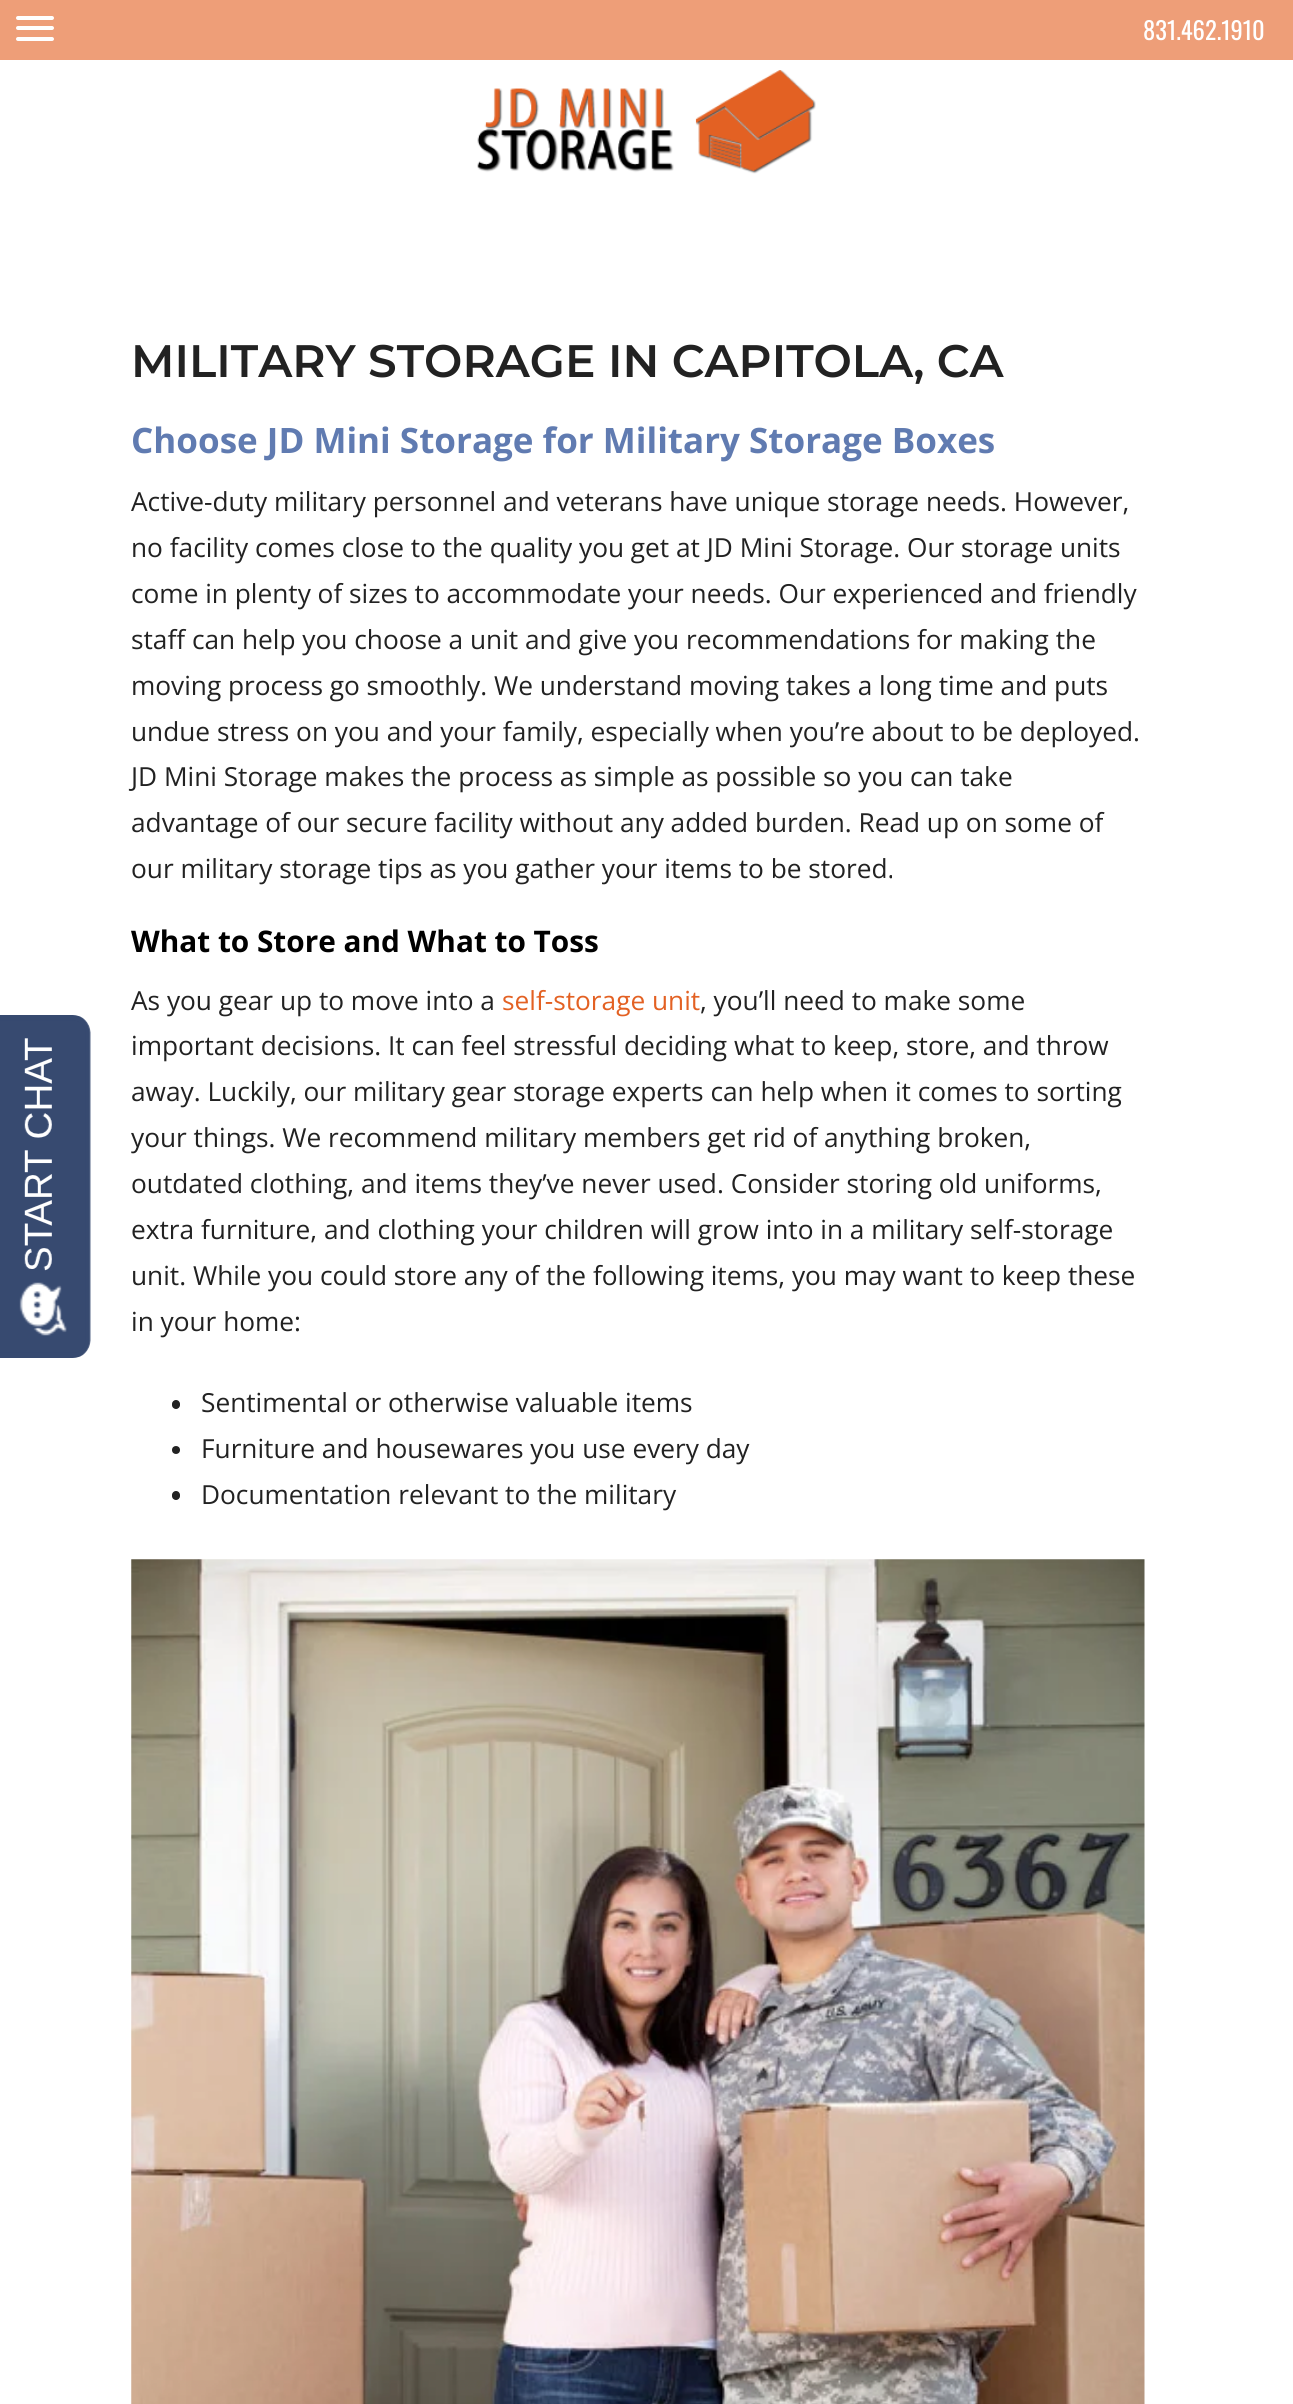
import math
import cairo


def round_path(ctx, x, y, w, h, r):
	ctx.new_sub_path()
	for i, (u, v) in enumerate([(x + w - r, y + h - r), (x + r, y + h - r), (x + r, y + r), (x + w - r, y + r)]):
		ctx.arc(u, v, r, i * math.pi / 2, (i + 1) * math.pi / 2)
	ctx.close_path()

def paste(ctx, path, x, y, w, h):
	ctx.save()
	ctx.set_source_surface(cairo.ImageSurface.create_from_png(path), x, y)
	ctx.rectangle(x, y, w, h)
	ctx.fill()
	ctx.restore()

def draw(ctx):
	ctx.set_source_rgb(1, 1, 1)
	ctx.paint()
	paste(ctx, 'media/1.png', 0, 1015, 91, 343)
	ctx.set_source_rgb(0.933, 0.62, 0.471)
	ctx.rectangle(0, 0, 1293, 60)
	ctx.fill()
	ctx.set_source_rgb(1, 1, 1)
	round_path(ctx, 16, 16, 38, 4, 2)
	ctx.fill()
	round_path(ctx, 16, 26, 38, 4, 2)
	ctx.fill()
	round_path(ctx, 16, 37, 38, 4, 2)
	ctx.fill()
	ctx.select_font_face('Oswald')
	ctx.set_font_size(24.5)
	ctx.move_to(1143, 40)
	ctx.show_text('831.462.1910')
	paste(ctx, 'media/2.png', 477, 70, 339, 104)
	ctx.select_font_face('Montserrat SemiBold')
	ctx.set_font_size(45.5)
	ctx.set_source_rgb(0.133, 0.133, 0.133)
	ctx.move_to(131, 377)
	ctx.show_text('MILITARY STORAGE IN CAPITOLA, CA')
	ctx.select_font_face('Open Sans', cairo.FONT_SLANT_NORMAL, cairo.FONT_WEIGHT_BOLD)
	ctx.set_font_size(35)
	ctx.set_source_rgb(0.376, 0.482, 0.694)
	ctx.move_to(131, 453)
	ctx.show_text('Choose JD Mini Storage for Military Storage Boxes')
	ctx.select_font_face('Open Sans')
	ctx.set_font_size(26.25)
	ctx.set_source_rgb(0.133, 0.133, 0.133)
	for x, y, s in [
		(131, 511, 'Active-duty military personnel and veterans have unique storage needs. However,'),
		(131, 557, 'no facility comes close to the quality you get at JD Mini Storage. Our storage units'),
		(131, 603, 'come in plenty of sizes to accommodate your needs. Our experienced and friendly'),
		(131, 649, 'staff can help you choose a unit and give you recommendations for making the'),
		(131, 695, 'moving process go smoothly. We understand moving takes a long time and puts'),
		(131, 741, 'undue stress on you and your family, especially when you’re about to be deployed.'),
		(131, 786, 'JD Mini Storage makes the process as simple as possible so you can take'),
		(131, 832, 'advantage of our secure facility without any added burden. Read up on some of'),
		(131, 878, 'our military storage tips as you gather your items to be stored.'),
	]:
		ctx.move_to(x, y)
		ctx.show_text(s)
	ctx.select_font_face('Open Sans', cairo.FONT_SLANT_NORMAL, cairo.FONT_WEIGHT_BOLD)
	ctx.set_font_size(29.75)
	ctx.set_source_rgb(0, 0, 0)
	ctx.move_to(131, 952)
	ctx.show_text('What to Store and What to Toss')
	ctx.select_font_face('Open Sans')
	ctx.set_font_size(26.25)
	ctx.set_source_rgb(0.133, 0.133, 0.133)
	ctx.move_to(131, 1010)
	ctx.show_text('As you gear up to move into a')
	ctx.set_source_rgb(0.89, 0.38, 0.137)
	ctx.move_to(502, 1010)
	ctx.show_text('self-storage unit')
	ctx.set_source_rgb(0.133, 0.133, 0.133)
	for x, y, s in [
		(700, 1010, ', you’ll need to make some'),
		(131, 1055, 'important decisions. It can feel stressful deciding what to keep, store, and throw'),
		(131, 1101, 'away. Luckily, our military gear storage experts can help when it comes to sorting'),
		(131, 1147, 'your things. We recommend military members get rid of anything broken,'),
		(131, 1193, 'outdated clothing, and items they’ve never used. Consider storing old uniforms,'),
		(131, 1239, 'extra furniture, and clothing your children will grow into in a military self-storage'),
		(131, 1285, 'unit. While you could store any of the following items, you may want to keep these'),
		(131, 1331, 'in your home:'),
	]:
		ctx.move_to(x, y)
		ctx.show_text(s)
	round_path(ctx, 172, 1400, 8, 9, 4)
	ctx.fill()
	ctx.move_to(201, 1412)
	ctx.show_text('Sentimental or otherwise valuable items')
	ctx.new_path()
	ctx.arc(176, 1450, 4, 0, 2 * math.pi)
	ctx.fill()
	ctx.move_to(201, 1458)
	ctx.show_text('Furniture and housewares you use every day')
	round_path(ctx, 172, 1491, 8, 9, 4)
	ctx.fill()
	ctx.move_to(201, 1504)
	ctx.show_text('Documentation relevant to the military')
	paste(ctx, 'media/3.png', 131, 1559, 1014, 845)


surface = cairo.ImageSurface(cairo.FORMAT_RGB24, 1293, 2404)
ctx = cairo.Context(surface)
options = cairo.FontOptions()
options.set_hint_metrics(cairo.HINT_METRICS_OFF)
options.set_hint_style(cairo.HINT_STYLE_NONE)
ctx.set_font_options(options)
ctx.set_miter_limit(4)
draw(ctx)
surface.write_to_png('image.png')
